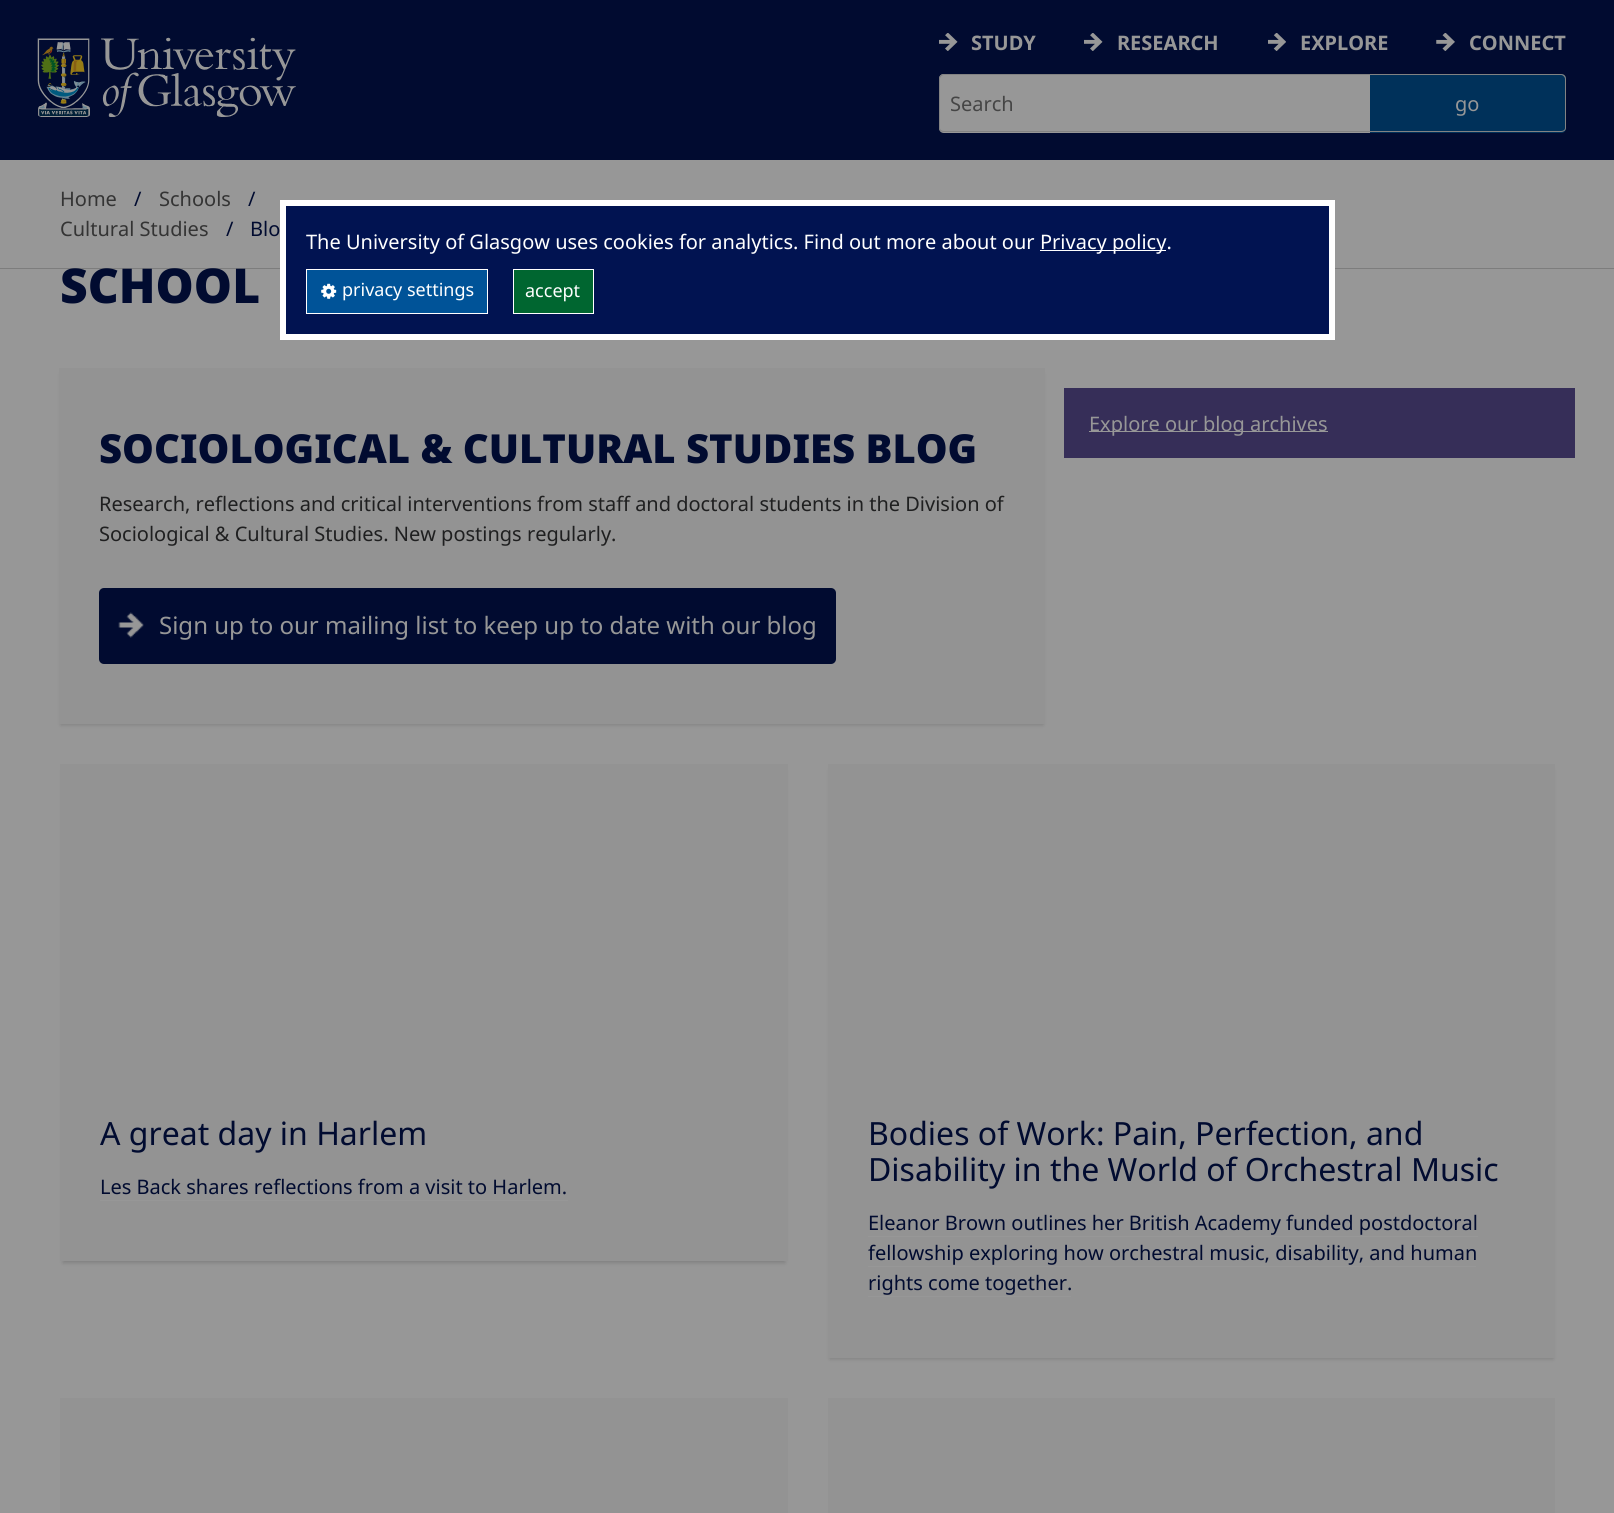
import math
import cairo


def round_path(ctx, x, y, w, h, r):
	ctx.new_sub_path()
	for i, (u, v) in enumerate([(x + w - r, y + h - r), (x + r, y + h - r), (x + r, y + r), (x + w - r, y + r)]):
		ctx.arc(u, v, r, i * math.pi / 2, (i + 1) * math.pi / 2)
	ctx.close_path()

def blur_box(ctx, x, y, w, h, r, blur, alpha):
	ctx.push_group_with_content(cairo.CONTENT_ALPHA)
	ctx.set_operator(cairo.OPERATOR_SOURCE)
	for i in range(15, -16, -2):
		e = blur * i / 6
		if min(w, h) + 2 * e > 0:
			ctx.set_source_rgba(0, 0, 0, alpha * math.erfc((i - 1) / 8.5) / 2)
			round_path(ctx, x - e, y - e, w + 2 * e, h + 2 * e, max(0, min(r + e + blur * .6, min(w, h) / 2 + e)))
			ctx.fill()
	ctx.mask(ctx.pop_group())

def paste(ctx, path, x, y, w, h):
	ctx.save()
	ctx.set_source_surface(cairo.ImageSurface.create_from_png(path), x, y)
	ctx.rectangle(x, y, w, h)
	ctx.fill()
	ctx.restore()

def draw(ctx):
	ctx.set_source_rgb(1, 1, 1)
	ctx.paint()
	ctx.set_source_rgb(0.004, 0.078, 0.318)
	ctx.rectangle(0, 0, 1614, 160)
	ctx.fill()
	paste(ctx, 'media/1.png', 939, 33, 19, 18)
	ctx.select_font_face('Noto Sans', cairo.FONT_SLANT_NORMAL, cairo.FONT_WEIGHT_BOLD)
	ctx.set_font_size(20)
	ctx.set_source_rgb(1, 1, 1)
	ctx.move_to(971, 50)
	ctx.show_text('STUDY')
	paste(ctx, 'media/1.png', 1084, 33, 19, 18)
	ctx.move_to(1117, 50)
	ctx.show_text('RESEARCH')
	paste(ctx, 'media/2.png', 1268, 33, 18, 18)
	ctx.move_to(1300, 50)
	ctx.show_text('EXPLORE')
	paste(ctx, 'media/3.png', 1436, 33, 19, 18)
	ctx.move_to(1469, 50)
	ctx.show_text('CONNECT')
	ctx.new_path()
	ctx.move_to(944, 74)
	ctx.line_to(1370, 74)
	ctx.line_to(1370, 133)
	ctx.line_to(944, 133)
	ctx.curve_to(941, 133, 939, 131, 939, 128)
	ctx.line_to(939, 79)
	ctx.curve_to(939, 76, 941, 74, 944, 74)
	ctx.close_path()
	ctx.fill()
	ctx.set_source_rgb(0.863, 0.863, 0.863)
	ctx.set_fill_rule(cairo.FILL_RULE_EVEN_ODD)
	ctx.new_path()
	ctx.move_to(944, 74)
	ctx.line_to(1370, 74)
	ctx.line_to(1370, 132)
	ctx.line_to(944, 132)
	ctx.curve_to(941, 132, 939, 130, 939, 128)
	ctx.line_to(939, 79)
	ctx.curve_to(939, 76, 941, 74, 944, 74)
	ctx.close_path()
	ctx.move_to(944, 75)
	ctx.line_to(1370, 75)
	ctx.line_to(1370, 131)
	ctx.line_to(944, 131)
	ctx.curve_to(942, 131, 940, 130, 940, 128)
	ctx.line_to(940, 79)
	ctx.curve_to(940, 77, 942, 75, 944, 75)
	ctx.close_path()
	ctx.fill()
	ctx.select_font_face('Noto Sans')
	ctx.set_source_rgb(0.459, 0.459, 0.459)
	ctx.move_to(950, 111)
	ctx.show_text('Search')
	ctx.set_source_rgb(0, 0.325, 0.596)
	ctx.new_path()
	ctx.move_to(1370, 74)
	ctx.line_to(1561, 74)
	ctx.curve_to(1564, 74, 1566, 76, 1566, 79)
	ctx.line_to(1566, 128)
	ctx.curve_to(1566, 131, 1564, 133, 1561, 133)
	ctx.line_to(1370, 133)
	ctx.close_path()
	ctx.fill()
	ctx.set_source_rgb(0.863, 0.863, 0.863)
	ctx.new_path()
	ctx.move_to(1370, 74)
	ctx.line_to(1561, 74)
	ctx.curve_to(1564, 74, 1566, 76, 1566, 79)
	ctx.line_to(1566, 128)
	ctx.curve_to(1566, 130, 1564, 132, 1561, 132)
	ctx.line_to(1370, 132)
	ctx.close_path()
	ctx.move_to(1370, 75)
	ctx.line_to(1561, 75)
	ctx.curve_to(1563, 75, 1565, 77, 1565, 79)
	ctx.line_to(1565, 128)
	ctx.curve_to(1565, 130, 1563, 131, 1561, 131)
	ctx.line_to(1370, 131)
	ctx.close_path()
	ctx.fill()
	ctx.set_source_rgb(1, 1, 1)
	ctx.move_to(1455, 111)
	ctx.show_text('go')
	paste(ctx, 'media/4.png', 37, 37, 259, 80)
	ctx.set_source_rgb(0.827, 0.827, 0.827)
	ctx.rectangle(0, 268, 1614, 1)
	ctx.fill()
	ctx.set_source_rgb(0.341, 0.341, 0.341)
	ctx.move_to(60, 206)
	ctx.show_text('Home')
	ctx.set_source_rgb(0.004, 0.078, 0.318)
	ctx.move_to(134, 206)
	ctx.show_text('/')
	ctx.set_source_rgb(0.341, 0.341, 0.341)
	ctx.move_to(159, 206)
	ctx.show_text('Schools')
	ctx.set_source_rgb(0.004, 0.078, 0.318)
	ctx.move_to(248, 206)
	ctx.show_text('/')
	ctx.set_source_rgb(0.341, 0.341, 0.341)
	ctx.move_to(60, 236)
	ctx.show_text('Cultural Studies')
	ctx.set_source_rgb(0.004, 0.078, 0.318)
	ctx.move_to(226, 236)
	ctx.show_text('/')
	ctx.move_to(250, 236)
	ctx.show_text('Blo')
	ctx.select_font_face('Noto Sans Black')
	ctx.set_font_size(48)
	ctx.move_to(60, 303)
	ctx.show_text('SCHOOL')
	ctx.set_source_rgb(0.357, 0.302, 0.58)
	ctx.rectangle(1064, 388, 511, 70)
	ctx.fill()
	ctx.set_source_rgb(1, 1, 1)
	ctx.rectangle(1089, 431, 239, 1)
	ctx.fill()
	ctx.select_font_face('Noto Sans')
	ctx.set_font_size(20)
	ctx.move_to(1089, 431)
	ctx.show_text('Explore our blog archives')
	ctx.set_source_rgb(0, 0, 0)
	blur_box(ctx, 61, 374, 982, 351, 0, 2, 0.15)
	ctx.set_source_rgb(0.969, 0.969, 0.969)
	ctx.rectangle(59, 368, 986, 356)
	ctx.fill()
	ctx.select_font_face('Noto Sans Black')
	ctx.set_font_size(40)
	ctx.set_source_rgb(0.004, 0.078, 0.318)
	ctx.move_to(99, 463)
	ctx.show_text('SOCIOLOGICAL & CULTURAL STUDIES BLOG')
	ctx.select_font_face('Noto Sans')
	ctx.set_font_size(20)
	ctx.set_source_rgb(0.204, 0.208, 0.212)
	ctx.move_to(99, 511)
	ctx.show_text('Research, reflections and critical interventions from staff and doctoral students in the Division of')
	ctx.move_to(99, 541)
	ctx.show_text('Sociological & Cultural Studies. New postings regularly.')
	ctx.set_source_rgb(0.004, 0.078, 0.318)
	round_path(ctx, 99, 588, 737, 76, 5)
	ctx.fill()
	paste(ctx, 'media/5.png', 118, 612, 26, 26)
	ctx.set_font_size(24)
	ctx.set_source_rgb(1, 1, 1)
	ctx.move_to(159, 634)
	ctx.show_text('Sign up to our mailing list to keep up to date with our blog')
	ctx.set_source_rgb(0, 0, 0)
	blur_box(ctx, 63, 770, 722, 493, 0, 2, 0.15)
	ctx.set_source_rgb(0.969, 0.969, 0.969)
	ctx.rectangle(60, 764, 728, 497)
	ctx.fill()
	ctx.set_font_size(32)
	ctx.set_source_rgb(0.004, 0.078, 0.318)
	ctx.move_to(100, 1145)
	ctx.show_text('A great day in Harlem')
	ctx.set_font_size(20)
	ctx.move_to(100, 1194)
	ctx.show_text('Les Back shares reflections from a visit to Harlem.')
	ctx.set_source_rgb(1, 1, 1)
	ctx.rectangle(100, 1200, 468, 1)
	ctx.fill()
	ctx.set_source_rgb(0, 0, 0)
	blur_box(ctx, 830, 770, 723, 589, 0, 2, 0.15)
	ctx.set_source_rgb(0.969, 0.969, 0.969)
	ctx.rectangle(828, 764, 727, 594)
	ctx.fill()
	ctx.set_font_size(32)
	ctx.set_source_rgb(0.004, 0.078, 0.318)
	ctx.move_to(868, 1145)
	ctx.show_text('Bodies of Work: Pain, Perfection, and')
	ctx.move_to(868, 1181)
	ctx.show_text('Disability in the World of Orchestral Music')
	ctx.set_font_size(20)
	ctx.move_to(868, 1230)
	ctx.show_text('Eleanor Brown outlines her British Academy funded postdoctoral')
	ctx.set_source_rgb(1, 1, 1)
	ctx.rectangle(868, 1236, 610, 1)
	ctx.fill()
	ctx.set_source_rgb(0.004, 0.078, 0.318)
	ctx.move_to(868, 1260)
	ctx.show_text('fellowship exploring how orchestral music, disability, and human')
	ctx.set_source_rgb(1, 1, 1)
	ctx.rectangle(868, 1266, 608, 1)
	ctx.fill()
	ctx.set_source_rgb(0.004, 0.078, 0.318)
	ctx.move_to(868, 1290)
	ctx.show_text('rights come together.')
	ctx.set_source_rgb(1, 1, 1)
	ctx.rectangle(868, 1296, 203, 1)
	ctx.fill()
	ctx.set_source_rgb(0.969, 0.969, 0.969)
	ctx.rectangle(60, 1398, 728, 115)
	ctx.rectangle(828, 1398, 727, 115)
	ctx.fill()
	ctx.set_source_rgb(0, 0, 0)
	blur_box(ctx, -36, -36, 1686, 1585, 0, 12, 0.41)
	ctx.set_source_rgb(0.004, 0.078, 0.318)
	ctx.rectangle(283, 203, 1049, 134)
	ctx.fill_preserve()
	ctx.set_source_rgb(1, 1, 1)
	ctx.set_line_width(6)
	ctx.stroke()
	ctx.move_to(306, 249)
	ctx.show_text('The University of Glasgow uses cookies for analytics. Find out more about our')
	ctx.rectangle(1040, 250, 126, 1)
	ctx.fill()
	ctx.move_to(1040, 249)
	ctx.show_text('Privacy policy.')
	ctx.set_source_rgb(0, 0.325, 0.596)
	ctx.rectangle(306.5, 269.5, 181, 44)
	ctx.fill_preserve()
	ctx.set_source_rgb(1, 1, 1)
	ctx.set_line_width(1)
	ctx.stroke()
	paste(ctx, 'media/6.png', 321, 283, 16, 16)
	ctx.set_font_size(18)
	ctx.move_to(342, 296)
	ctx.show_text('privacy settings')
	ctx.set_source_rgb(0, 0.4, 0.188)
	ctx.rectangle(513.5, 269.5, 80, 44)
	ctx.fill_preserve()
	ctx.set_source_rgb(1, 1, 1)
	ctx.stroke()
	ctx.move_to(525, 297)
	ctx.show_text('accept')


surface = cairo.ImageSurface(cairo.FORMAT_RGB24, 1614, 1513)
ctx = cairo.Context(surface)
options = cairo.FontOptions()
options.set_hint_metrics(cairo.HINT_METRICS_OFF)
options.set_hint_style(cairo.HINT_STYLE_NONE)
ctx.set_font_options(options)
ctx.set_miter_limit(4)
draw(ctx)
surface.write_to_png('image.png')
